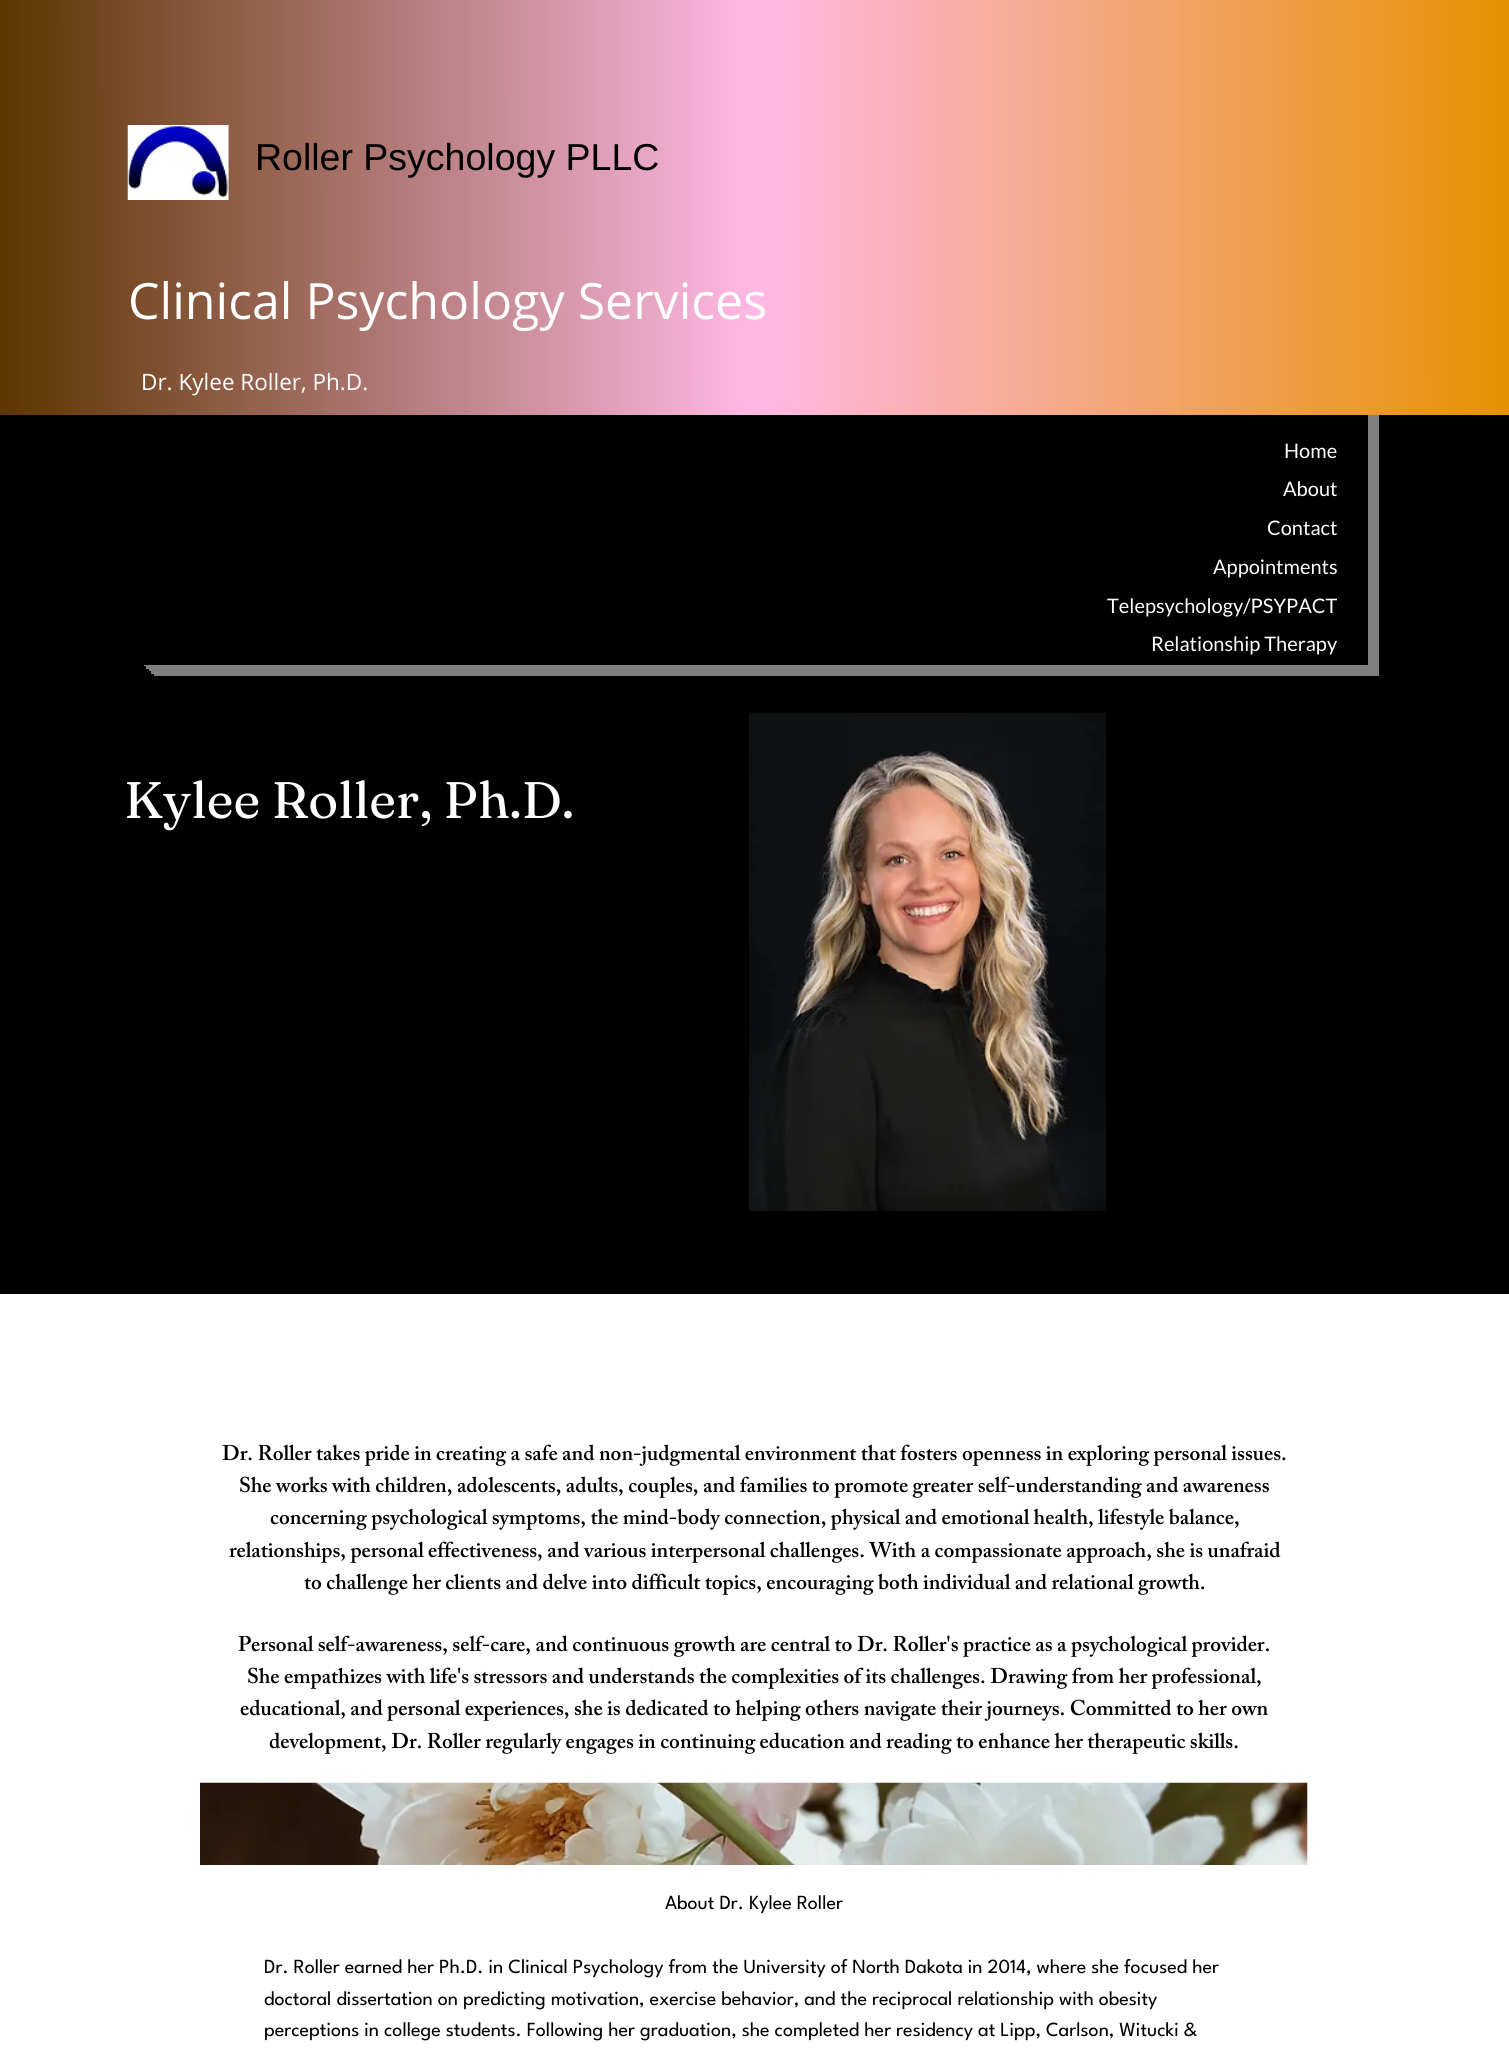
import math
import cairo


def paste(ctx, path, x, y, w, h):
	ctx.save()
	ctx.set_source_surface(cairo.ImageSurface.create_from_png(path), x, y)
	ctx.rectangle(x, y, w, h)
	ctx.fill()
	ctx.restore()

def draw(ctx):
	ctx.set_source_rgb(0, 0, 0)
	ctx.paint()
	ctx.set_source_rgb(0.502, 0.502, 0.502)
	ctx.new_path()
	ctx.move_to(154, 665)
	ctx.line_to(154, 676)
	ctx.line_to(1379, 676)
	ctx.line_to(1379, 11)
	ctx.line_to(1368, 11)
	ctx.line_to(1368, 665)
	ctx.close_path()
	ctx.fill()
	ctx.new_path()
	ctx.move_to(151, 665)
	ctx.line_to(151, 674)
	ctx.line_to(1376, 674)
	ctx.line_to(1376, 9)
	ctx.line_to(1368, 9)
	ctx.line_to(1368, 665)
	ctx.close_path()
	ctx.fill()
	ctx.new_path()
	ctx.move_to(149, 665)
	ctx.line_to(149, 671)
	ctx.line_to(1374, 671)
	ctx.line_to(1374, 6)
	ctx.line_to(1368, 6)
	ctx.line_to(1368, 665)
	ctx.close_path()
	ctx.fill()
	ctx.new_path()
	ctx.move_to(146, 665)
	ctx.line_to(146, 669)
	ctx.line_to(1371, 669)
	ctx.line_to(1371, 4)
	ctx.line_to(1368, 4)
	ctx.line_to(1368, 665)
	ctx.close_path()
	ctx.fill()
	ctx.new_path()
	ctx.move_to(144, 665)
	ctx.line_to(144, 666)
	ctx.line_to(1369, 666)
	ctx.line_to(1369, 1)
	ctx.line_to(1368, 1)
	ctx.line_to(1368, 665)
	ctx.close_path()
	ctx.fill()
	gradient = cairo.LinearGradient(0, 208, 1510, 207)
	gradient.add_color_stop_rgba(0, 0.365, 0.208, 0, 1)
	gradient.add_color_stop_rgba(0.5, 1, 0.725, 0.898, 1)
	gradient.add_color_stop_rgba(1, 0.906, 0.569, 0, 1)
	ctx.set_source(gradient)
	ctx.rectangle(0, 0, 1509, 415)
	ctx.fill()
	paste(ctx, 'media/1.png', 127, 125, 102, 75)
	ctx.select_font_face('Liberation Sans')
	ctx.set_font_size(37.5)
	ctx.set_source_rgb(0, 0, 0)
	ctx.move_to(255, 170)
	ctx.show_text('Roller Psychology PLLC')
	ctx.select_font_face('Open Sans')
	ctx.set_font_size(50)
	ctx.set_source_rgb(1, 1, 1)
	ctx.move_to(128, 319)
	ctx.show_text('Clinical Psychology Services')
	ctx.set_font_size(22.5)
	ctx.move_to(141, 390)
	ctx.show_text('Dr. Kylee Roller, Ph.D.')
	ctx.select_font_face('Lato')
	ctx.set_font_size(20)
	for x, y, s in [
		(1284, 458, 'Home'),
		(1283, 496, 'About'),
		(1267, 535, 'Contact'),
		(1213, 574, 'Appointments'),
		(1107, 613, 'Telepsychology/PSYPACT'),
		(1151, 651, 'Relationship Therapy'),
	]:
		ctx.move_to(x, y)
		ctx.show_text(s)
	ctx.select_font_face('Fraunces')
	ctx.set_font_size(51.25)
	ctx.move_to(124, 818)
	ctx.show_text('Kylee Roller, Ph.D.')
	paste(ctx, 'media/2.png', 749, 712, 357, 499)
	ctx.rectangle(0, 1294, 1509, 754)
	ctx.fill()
	ctx.select_font_face('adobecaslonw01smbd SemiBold')
	ctx.set_font_size(21.25)
	ctx.set_source_rgb(0, 0, 0)
	for x, y, s in [
		(222, 1460, 'Dr. Roller takes pride in creating a safe and non-judgmental environment that fosters openness in exploring personal issues.'),
		(239, 1492, 'She works with children, adolescents, adults, couples, and families to promote greater self-understanding and awareness'),
		(270, 1524, 'concerning psychological symptoms, the mind-body connection, physical and emotional health, lifestyle balance,'),
		(229, 1557, 'relationships, personal effectiveness, and various interpersonal challenges. With a compassionate approach, she is unafraid'),
		(304, 1589, 'to challenge her clients and delve into difficult topics, encouraging both individual and relational growth.'),
		(238, 1651, 'Personal self-awareness, self-care, and continuous growth are central to Dr. Roller\'s practice as a psychological provider.'),
		(247, 1683, 'She empathizes with life\'s stressors and understands the complexities of its challenges. Drawing from her professional,'),
		(240, 1715, 'educational, and personal experiences, she is dedicated to helping others navigate their journeys. Committed to her own'),
		(269, 1748, 'development, Dr. Roller regularly engages in continuing education and reading to enhance her therapeutic skills.'),
	]:
		ctx.move_to(x, y)
		ctx.show_text(s)
	paste(ctx, 'media/3.png', 200, 1782, 1108, 83)
	ctx.select_font_face('League Spartan')
	ctx.set_font_size(20)
	for x, y, s in [
		(665, 1909, 'About Dr. Kylee Roller'),
		(264, 1973, 'Dr. Roller earned her Ph.D. in Clinical Psychology from the University of North Dakota in 2014, where she focused her'),
		(264, 2005, 'doctoral dissertation on predicting motivation, exercise behavior, and the reciprocal relationship with obesity'),
		(264, 2036, 'perceptions in college students. Following her graduation, she completed her residency at Lipp, Carlson, Witucki &'),
	]:
		ctx.move_to(x, y)
		ctx.show_text(s)


surface = cairo.ImageSurface(cairo.FORMAT_RGB24, 1509, 2048)
ctx = cairo.Context(surface)
options = cairo.FontOptions()
options.set_hint_metrics(cairo.HINT_METRICS_OFF)
options.set_hint_style(cairo.HINT_STYLE_NONE)
ctx.set_font_options(options)
ctx.set_miter_limit(4)
draw(ctx)
surface.write_to_png('image.png')
